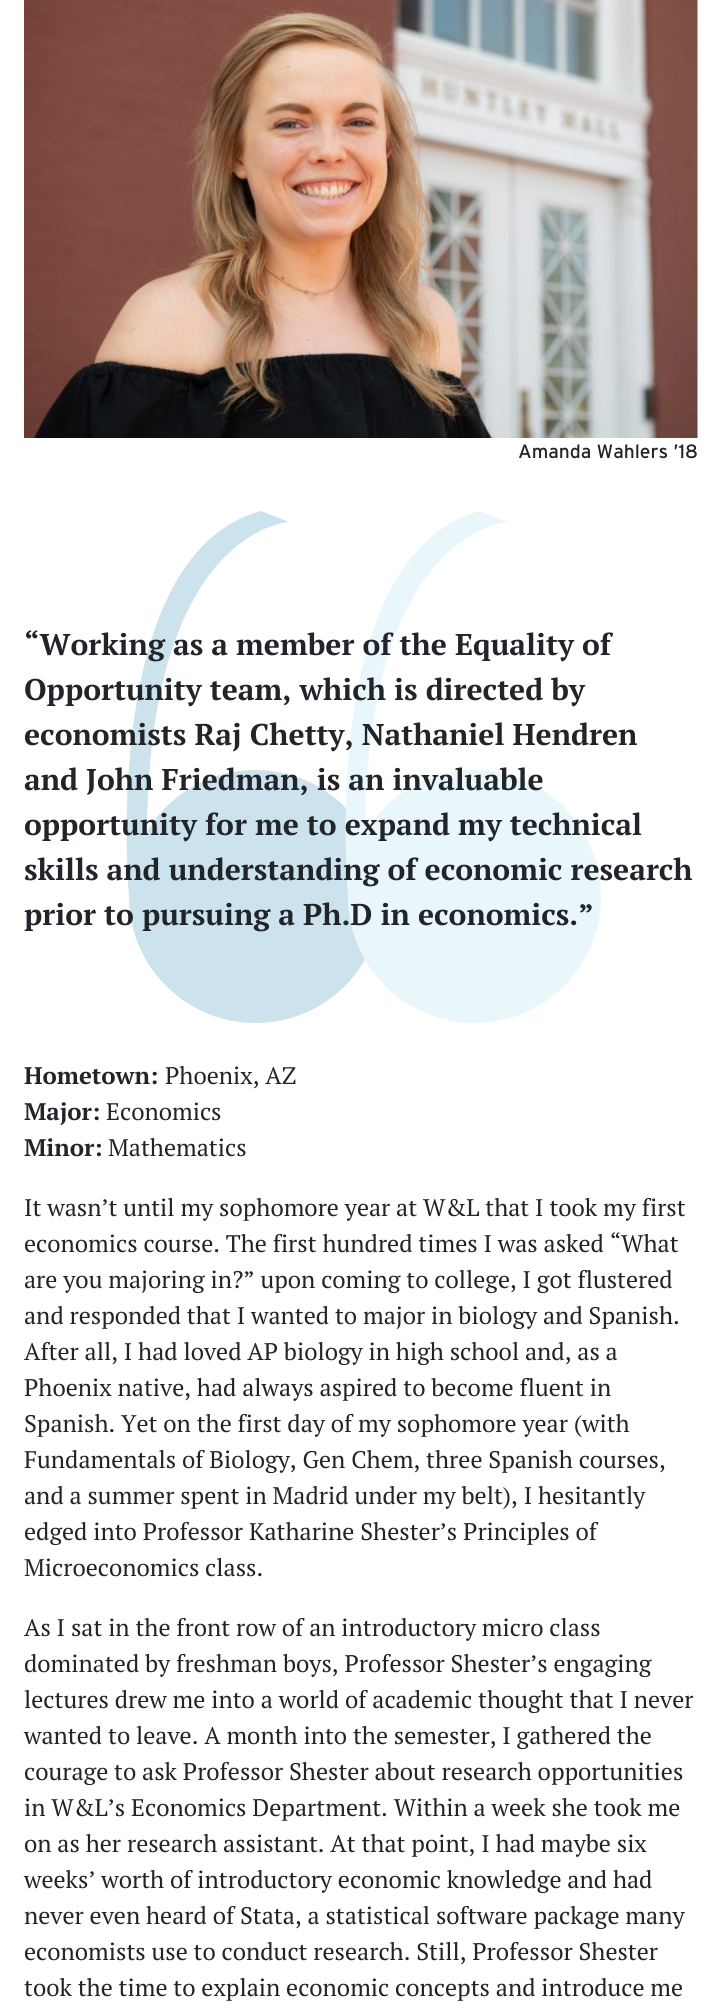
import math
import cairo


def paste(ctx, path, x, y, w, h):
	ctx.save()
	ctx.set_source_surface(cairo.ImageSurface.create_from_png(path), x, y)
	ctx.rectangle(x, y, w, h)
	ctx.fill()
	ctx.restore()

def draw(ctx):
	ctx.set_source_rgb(1, 1, 1)
	ctx.paint()
	paste(ctx, 'media/1.png', 24, 0, 674, 438)
	ctx.select_font_face('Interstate')
	ctx.set_font_size(19.25)
	ctx.set_source_rgb(0.129, 0.145, 0.161)
	ctx.move_to(518, 458)
	ctx.show_text('Amanda Wahlers ’18')
	ctx.set_source_rgb(0.8, 0.886, 0.929)
	ctx.new_path()
	ctx.arc(255.5, 896.5, 126.5, 0, 2 * math.pi)
	ctx.fill()
	ctx.new_path()
	ctx.move_to(129, 897)
	ctx.curve_to(129, 897, 98, 555, 261, 511)
	ctx.line_to(289, 522)
	ctx.curve_to(289, 522, 147, 529, 147, 838)
	ctx.close_path()
	ctx.fill()
	ctx.set_source_rgb(0.914, 0.965, 0.98)
	ctx.arc(474.5, 896.5, 126.5, 0, 2 * math.pi)
	ctx.fill()
	ctx.new_path()
	ctx.move_to(348, 897)
	ctx.curve_to(348, 897, 316, 556, 480, 511)
	ctx.line_to(508, 522)
	ctx.curve_to(508, 522, 365, 529, 365, 838)
	ctx.close_path()
	ctx.fill()
	ctx.select_font_face('PT Serif', cairo.FONT_SLANT_NORMAL, cairo.FONT_WEIGHT_BOLD)
	ctx.set_font_size(30)
	ctx.set_source_rgb(0.129, 0.145, 0.161)
	for x, y, s in [
		(24, 655, '“Working as a member of the Equality of'),
		(24, 700, 'Opportunity team, which is directed by'),
		(24, 745, 'economists Raj Chetty, Nathaniel Hendren'),
		(24, 790, 'and John Friedman, is an invaluable'),
		(24, 835, 'opportunity for me to expand my technical'),
		(24, 880, 'skills and understanding of economic research'),
		(24, 925, 'prior to pursuing a Ph.D in economics.”'),
	]:
		ctx.move_to(x, y)
		ctx.show_text(s)
	ctx.set_font_size(24)
	ctx.move_to(24, 1084)
	ctx.show_text('Hometown:')
	ctx.select_font_face('PT Serif')
	ctx.move_to(165, 1084)
	ctx.show_text('Phoenix, AZ')
	ctx.select_font_face('PT Serif', cairo.FONT_SLANT_NORMAL, cairo.FONT_WEIGHT_BOLD)
	ctx.move_to(24, 1120)
	ctx.show_text('Major:')
	ctx.select_font_face('PT Serif')
	ctx.move_to(106, 1120)
	ctx.show_text('Economics')
	ctx.select_font_face('PT Serif', cairo.FONT_SLANT_NORMAL, cairo.FONT_WEIGHT_BOLD)
	ctx.move_to(24, 1156)
	ctx.show_text('Minor:')
	ctx.select_font_face('PT Serif')
	for x, y, s in [
		(108, 1156, 'Mathematics'),
		(24, 1216, 'It wasn’t until my sophomore year at W&L that I took my first'),
		(24, 1252, 'economics course. The first hundred times I was asked “What'),
		(24, 1288, 'are you majoring in?” upon coming to college, I got flustered'),
		(24, 1324, 'and responded that I wanted to major in biology and Spanish.'),
		(24, 1360, 'After all, I had loved AP biology in high school and, as a'),
		(24, 1396, 'Phoenix native, had always aspired to become fluent in'),
		(24, 1432, 'Spanish. Yet on the first day of my sophomore year (with'),
		(24, 1468, 'Fundamentals of Biology, Gen Chem, three Spanish courses,'),
		(24, 1504, 'and a summer spent in Madrid under my belt), I hesitantly'),
		(24, 1540, 'edged into Professor Katharine Shester’s Principles of'),
		(24, 1576, 'Microeconomics class.'),
		(24, 1636, 'As I sat in the front row of an introductory micro class'),
		(24, 1672, 'dominated by freshman boys, Professor Shester’s engaging'),
		(24, 1708, 'lectures drew me into a world of academic thought that I never'),
		(24, 1744, 'wanted to leave. A month into the semester, I gathered the'),
		(24, 1780, 'courage to ask Professor Shester about research opportunities'),
		(24, 1816, 'in W&L’s Economics Department. Within a week she took me'),
		(24, 1852, 'on as her research assistant. At that point, I had maybe six'),
		(24, 1888, 'weeks’ worth of introductory economic knowledge and had'),
		(24, 1924, 'never even heard of Stata, a statistical software package many'),
		(24, 1960, 'economists use to conduct research. Still, Professor Shester'),
		(24, 1996, 'took the time to explain economic concepts and introduce me'),
	]:
		ctx.move_to(x, y)
		ctx.show_text(s)


surface = cairo.ImageSurface(cairo.FORMAT_RGB24, 721, 2016)
ctx = cairo.Context(surface)
options = cairo.FontOptions()
options.set_hint_metrics(cairo.HINT_METRICS_OFF)
options.set_hint_style(cairo.HINT_STYLE_NONE)
ctx.set_font_options(options)
ctx.set_miter_limit(4)
draw(ctx)
surface.write_to_png('image.png')
